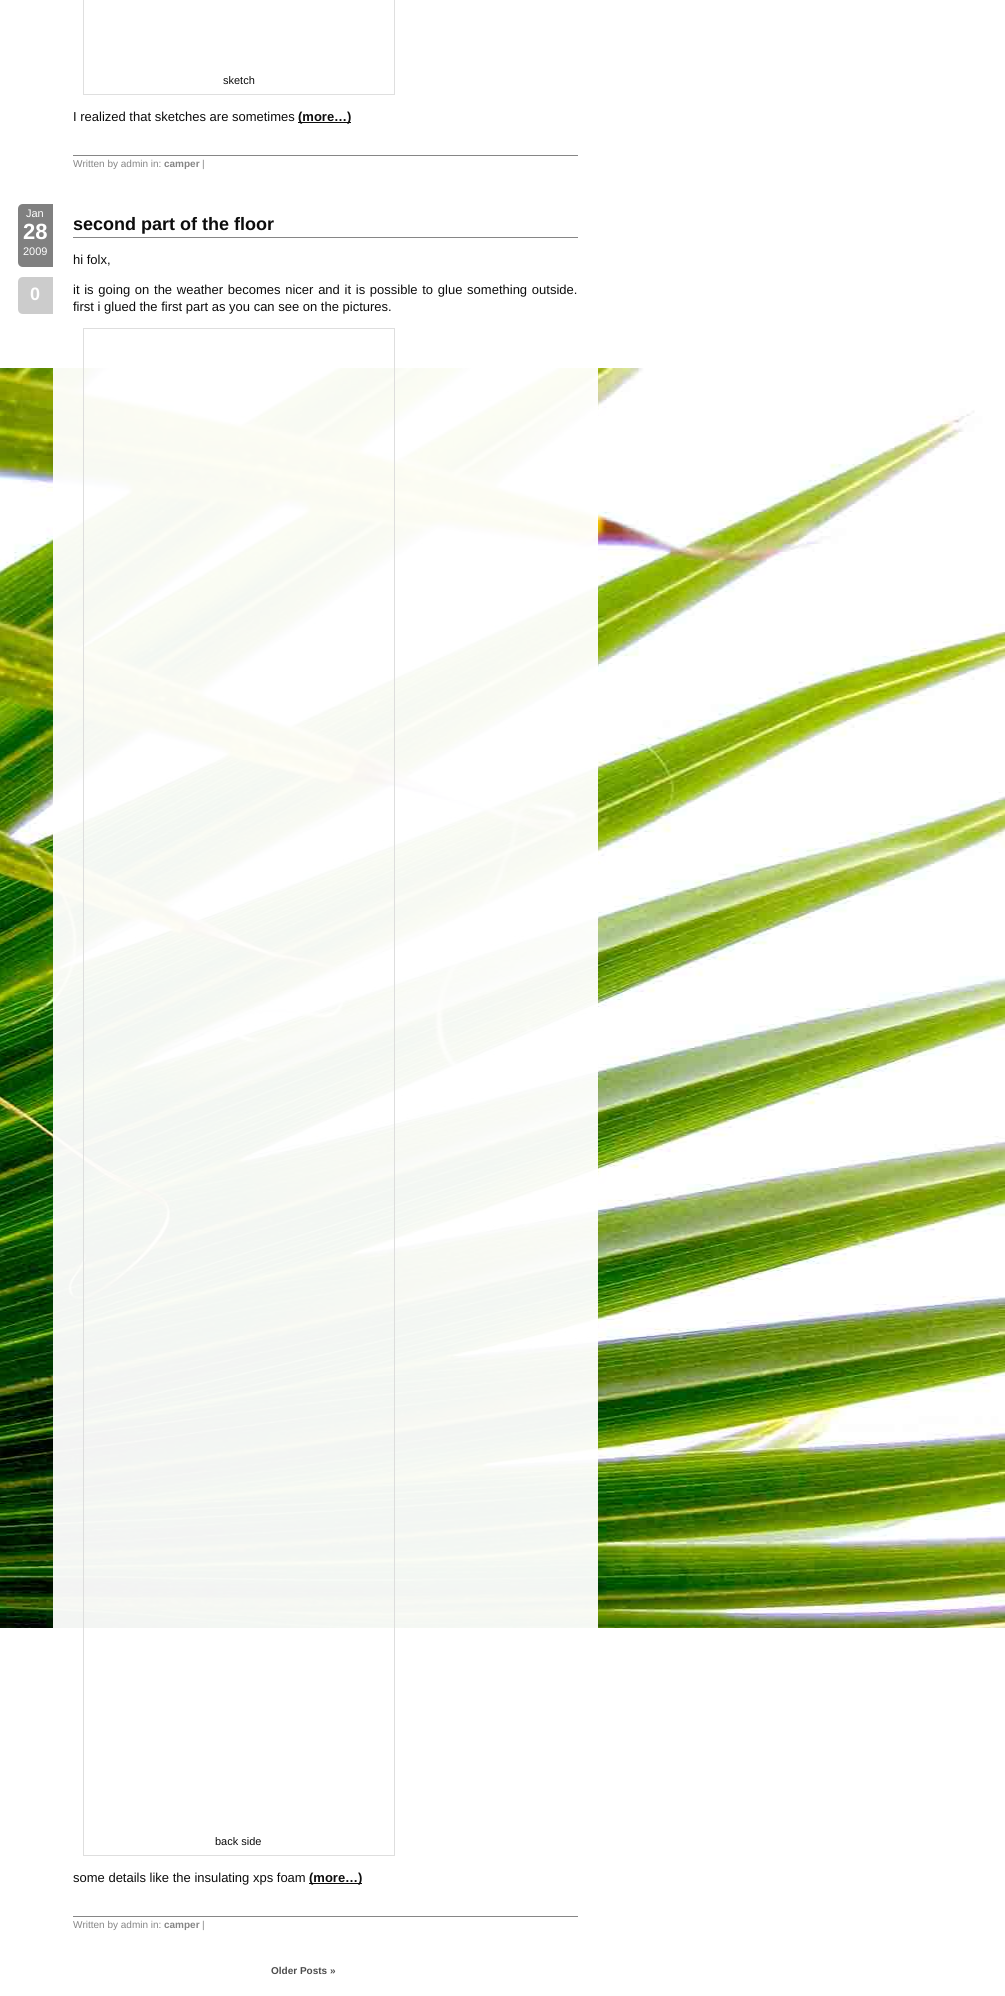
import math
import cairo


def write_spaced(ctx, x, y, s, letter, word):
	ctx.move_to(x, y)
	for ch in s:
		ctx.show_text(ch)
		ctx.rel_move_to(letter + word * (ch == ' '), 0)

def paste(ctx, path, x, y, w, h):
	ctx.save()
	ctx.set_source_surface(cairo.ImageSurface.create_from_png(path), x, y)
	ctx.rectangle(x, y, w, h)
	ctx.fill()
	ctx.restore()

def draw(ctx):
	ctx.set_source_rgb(1, 1, 1)
	ctx.paint()
	paste(ctx, 'media/1.png', 0, 368, 1005, 1260)
	ctx.rectangle(83.5, -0.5, 311, 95)
	ctx.set_source_rgb(0.875, 0.875, 0.875)
	ctx.set_line_width(1)
	ctx.stroke()
	ctx.select_font_face('Liberation Sans')
	ctx.set_font_size(11)
	ctx.set_source_rgb(0.051, 0.051, 0.051)
	ctx.move_to(223, 84)
	ctx.show_text('sketch')
	ctx.set_font_size(13)
	ctx.move_to(73, 121)
	ctx.show_text('I realized that sketches are sometimes')
	ctx.rectangle(298, 122, 53, 1)
	ctx.fill()
	ctx.select_font_face('Liberation Sans', cairo.FONT_SLANT_NORMAL, cairo.FONT_WEIGHT_BOLD)
	ctx.move_to(298, 121)
	ctx.show_text('(more…)')
	ctx.set_source_rgb(0.525, 0.525, 0.525)
	ctx.rectangle(73, 155, 505, 1)
	ctx.fill()
	ctx.select_font_face('Liberation Sans')
	ctx.set_font_size(10)
	ctx.move_to(73, 167)
	ctx.show_text('Written by admin in:')
	ctx.select_font_face('Liberation Sans', cairo.FONT_SLANT_NORMAL, cairo.FONT_WEIGHT_BOLD)
	ctx.move_to(164, 167)
	ctx.show_text('camper')
	ctx.select_font_face('Liberation Sans')
	ctx.move_to(202, 167)
	ctx.show_text('|')
	ctx.set_source_rgb(0.502, 0.502, 0.502)
	ctx.new_path()
	ctx.move_to(23, 204)
	ctx.line_to(53, 204)
	ctx.line_to(53, 267)
	ctx.line_to(23, 267)
	ctx.curve_to(20, 267, 18, 265, 18, 262)
	ctx.line_to(18, 209)
	ctx.curve_to(18, 206, 20, 204, 23, 204)
	ctx.close_path()
	ctx.fill()
	ctx.set_font_size(11)
	ctx.set_source_rgb(1, 1, 1)
	ctx.move_to(26, 217)
	ctx.show_text('Jan')
	ctx.select_font_face('Liberation Sans', cairo.FONT_SLANT_NORMAL, cairo.FONT_WEIGHT_BOLD)
	ctx.set_font_size(22)
	ctx.move_to(23, 239)
	ctx.show_text('28')
	ctx.select_font_face('Liberation Sans')
	ctx.set_font_size(11)
	ctx.move_to(23, 255)
	ctx.show_text('2009')
	ctx.set_source_rgb(0.8, 0.8, 0.8)
	ctx.new_path()
	ctx.move_to(23, 277)
	ctx.line_to(53, 277)
	ctx.line_to(53, 314)
	ctx.line_to(23, 314)
	ctx.curve_to(20, 314, 18, 312, 18, 309)
	ctx.line_to(18, 282)
	ctx.curve_to(18, 279, 20, 277, 23, 277)
	ctx.close_path()
	ctx.fill()
	ctx.select_font_face('Liberation Sans', cairo.FONT_SLANT_NORMAL, cairo.FONT_WEIGHT_BOLD)
	ctx.set_font_size(18)
	ctx.set_source_rgb(1, 1, 1)
	ctx.move_to(30, 300)
	ctx.show_text('0')
	ctx.set_source_rgba(1, 1, 1, 0.95)
	ctx.new_path()
	ctx.move_to(53, 204)
	ctx.line_to(588, 204)
	ctx.curve_to(593.5, 204, 598, 208.5, 598, 214)
	ctx.line_to(598, 1940)
	ctx.curve_to(598, 1945.5, 593.5, 1950, 588, 1950)
	ctx.line_to(63, 1950)
	ctx.curve_to(57.5, 1950, 53, 1945.5, 53, 1940)
	ctx.close_path()
	ctx.fill()
	ctx.set_source_rgb(0.525, 0.525, 0.525)
	ctx.rectangle(73, 237, 505, 1)
	ctx.fill()
	ctx.set_source_rgb(0.051, 0.051, 0.051)
	ctx.move_to(73, 230)
	ctx.show_text('second part of the floor')
	ctx.select_font_face('Liberation Sans')
	ctx.set_font_size(13)
	ctx.move_to(73, 264)
	ctx.show_text('hi folx,')
	write_spaced(ctx, 73, 294, 'it is going on the weather becomes nicer and it is possible to glue something outside.', 0, 1.1)
	ctx.move_to(73, 311)
	ctx.show_text('first i glued the first part as you can see on the pictures.')
	ctx.rectangle(83.5, 328.5, 311, 1527)
	ctx.set_source_rgba(0.867, 0.867, 0.867, 0.95)
	ctx.stroke()
	ctx.set_font_size(11)
	ctx.set_source_rgb(0.051, 0.051, 0.051)
	ctx.move_to(215, 1845)
	ctx.show_text('back side')
	ctx.set_font_size(13)
	ctx.move_to(73, 1882)
	ctx.show_text('some details like the insulating xps foam')
	ctx.rectangle(309, 1883, 53, 1)
	ctx.fill()
	ctx.select_font_face('Liberation Sans', cairo.FONT_SLANT_NORMAL, cairo.FONT_WEIGHT_BOLD)
	ctx.move_to(309, 1882)
	ctx.show_text('(more…)')
	ctx.set_source_rgb(0.525, 0.525, 0.525)
	ctx.rectangle(73, 1916, 505, 1)
	ctx.fill()
	ctx.select_font_face('Liberation Sans')
	ctx.set_font_size(10)
	ctx.move_to(73, 1928)
	ctx.show_text('Written by admin in:')
	ctx.select_font_face('Liberation Sans', cairo.FONT_SLANT_NORMAL, cairo.FONT_WEIGHT_BOLD)
	ctx.move_to(164, 1928)
	ctx.show_text('camper')
	ctx.select_font_face('Liberation Sans')
	ctx.move_to(202, 1928)
	ctx.show_text('|')
	ctx.select_font_face('Liberation Sans', cairo.FONT_SLANT_NORMAL, cairo.FONT_WEIGHT_BOLD)
	ctx.set_source_rgb(0.302, 0.302, 0.302)
	ctx.move_to(271, 1974)
	ctx.show_text('Older Posts »')


surface = cairo.ImageSurface(cairo.FORMAT_RGB24, 1005, 1996)
ctx = cairo.Context(surface)
options = cairo.FontOptions()
options.set_hint_metrics(cairo.HINT_METRICS_OFF)
options.set_hint_style(cairo.HINT_STYLE_NONE)
ctx.set_font_options(options)
ctx.set_miter_limit(4)
draw(ctx)
surface.write_to_png('image.png')
